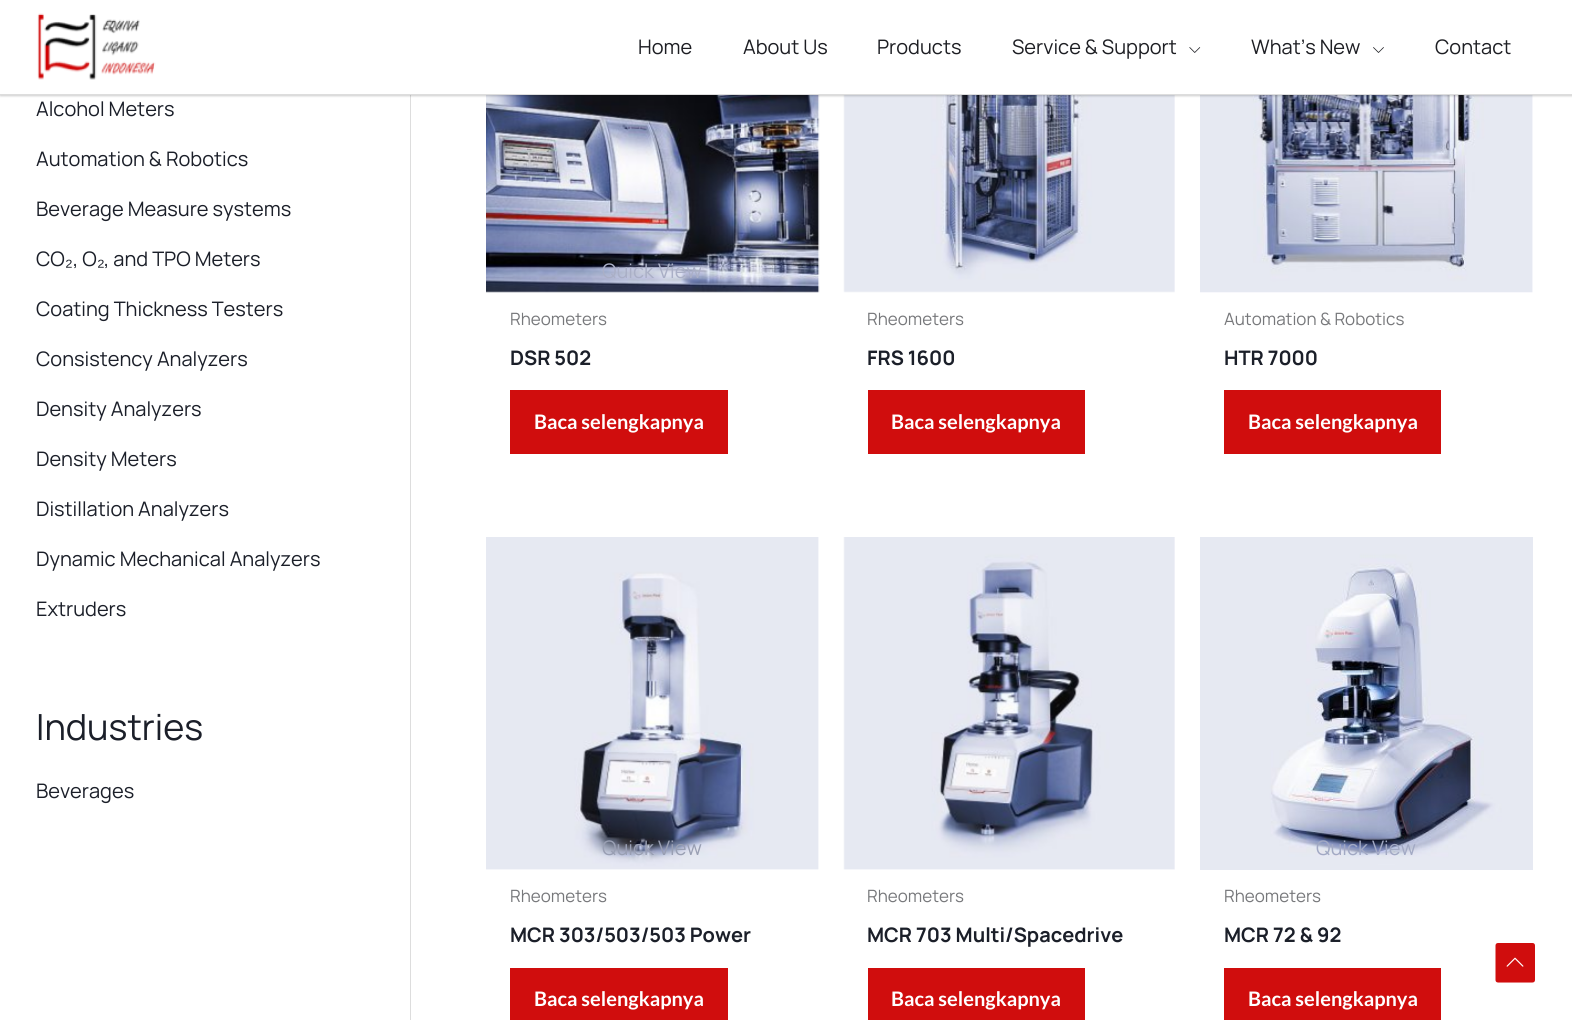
import math
import cairo


def round_path(ctx, x, y, w, h, r):
	ctx.new_sub_path()
	for i, (u, v) in enumerate([(x + w - r, y + h - r), (x + r, y + h - r), (x + r, y + r), (x + w - r, y + r)]):
		ctx.arc(u, v, r, i * math.pi / 2, (i + 1) * math.pi / 2)
	ctx.close_path()

def blur_box(ctx, x, y, w, h, r, blur, alpha):
	ctx.push_group_with_content(cairo.CONTENT_ALPHA)
	ctx.set_operator(cairo.OPERATOR_SOURCE)
	for i in range(15, -16, -2):
		e = blur * i / 6
		if min(w, h) + 2 * e > 0:
			ctx.set_source_rgba(0, 0, 0, alpha * math.erfc((i - 1) / 8.5) / 2)
			round_path(ctx, x - e, y - e, w + 2 * e, h + 2 * e, max(0, min(r + e + blur * .6, min(w, h) / 2 + e)))
			ctx.fill()
	ctx.mask(ctx.pop_group())

def paste(ctx, path, x, y, w, h):
	ctx.save()
	ctx.set_source_surface(cairo.ImageSurface.create_from_png(path), x, y)
	ctx.rectangle(x, y, w, h)
	ctx.fill()
	ctx.restore()

def draw(ctx):
	ctx.set_source_rgb(1, 1, 1)
	ctx.paint()
	ctx.set_source_rgb(0.867, 0.867, 0.867)
	ctx.rectangle(410, 95, 1, 925)
	ctx.fill()
	paste(ctx, 'media/4.png', 486, 95, 334, 198)
	paste(ctx, 'media/5.png', 843, 95, 332, 198)
	paste(ctx, 'media/6.png', 1200, 95, 333, 198)
	ctx.set_source_rgb(0, 0, 0)
	blur_box(ctx, 0, 1, 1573, 95, 0, 1, 0.2)
	ctx.set_source_rgb(1, 1, 1)
	ctx.rectangle(0, 0, 1572, 94)
	ctx.fill()
	ctx.set_source_rgb(0.867, 0.867, 0.867)
	ctx.rectangle(0, 94, 1572, 1)
	ctx.fill()
	paste(ctx, 'media/1.png', 37, 13, 119, 67)
	ctx.select_font_face('Manrope')
	ctx.set_font_size(20)
	ctx.set_source_rgb(0.114, 0.118, 0.137)
	for x, y, s in [
		(638, 54, 'Home'),
		(743, 54, 'About Us'),
		(877, 54, 'Products'),
		(1012, 54, 'Service & Support'),
	]:
		ctx.move_to(x, y)
		ctx.show_text(s)
	paste(ctx, 'media/2.png', 1189, 47, 12, 6)
	ctx.move_to(1251, 54)
	ctx.show_text('What’s New')
	paste(ctx, 'media/3.png', 1373, 47, 11, 6)
	ctx.move_to(1435, 54)
	ctx.show_text('Contact')
	ctx.set_source_rgb(0.106, 0.122, 0.161)
	for x, y, s in [
		(36, 116, 'Alcohol Meters'),
		(36, 166, 'Automation & Robotics'),
		(36, 216, 'Beverage Measure systems'),
		(36, 266, 'CO'),
	]:
		ctx.move_to(x, y)
		ctx.show_text(s)
	ctx.select_font_face('Liberation Sans')
	ctx.move_to(65, 266)
	ctx.show_text('₂')
	ctx.select_font_face('Manrope')
	ctx.move_to(73, 266)
	ctx.show_text(', O')
	ctx.select_font_face('Liberation Sans')
	ctx.move_to(97, 266)
	ctx.show_text('₂')
	ctx.select_font_face('Manrope')
	for x, y, s in [
		(104, 266, ', and TPO Meters'),
		(36, 316, 'Coating Thickness Testers'),
		(36, 366, 'Consistency Analyzers'),
		(36, 416, 'Density Analyzers'),
		(36, 466, 'Density Meters'),
		(36, 516, 'Distillation Analyzers'),
		(36, 566, 'Dynamic Mechanical Analyzers'),
		(36, 616, 'Extruders'),
	]:
		ctx.move_to(x, y)
		ctx.show_text(s)
	ctx.set_font_size(36)
	ctx.move_to(36, 740)
	ctx.show_text('Industries')
	ctx.set_font_size(20)
	ctx.move_to(36, 798)
	ctx.show_text('Beverages')
	ctx.set_source_rgb(0.667, 0.686, 0.776)
	ctx.move_to(602, 278)
	ctx.show_text('Quick View')
	ctx.set_font_size(17)
	ctx.set_source_rgb(0.467, 0.471, 0.482)
	ctx.move_to(510, 325)
	ctx.show_text('Rheometers')
	ctx.select_font_face('Manrope', cairo.FONT_SLANT_NORMAL, cairo.FONT_WEIGHT_BOLD)
	ctx.set_font_size(20)
	ctx.set_source_rgb(0.106, 0.122, 0.161)
	ctx.move_to(510, 365)
	ctx.show_text('DSR 502')
	ctx.set_source_rgb(0.816, 0.051, 0.051)
	ctx.rectangle(510, 390, 218, 64)
	ctx.fill()
	ctx.select_font_face('Lato', cairo.FONT_SLANT_NORMAL, cairo.FONT_WEIGHT_BOLD)
	ctx.set_source_rgb(1, 1, 1)
	ctx.move_to(534, 429)
	ctx.show_text('Baca selengkapnya')
	ctx.select_font_face('Manrope')
	ctx.set_font_size(17)
	ctx.set_source_rgb(0.467, 0.471, 0.482)
	ctx.move_to(867, 325)
	ctx.show_text('Rheometers')
	ctx.select_font_face('Manrope', cairo.FONT_SLANT_NORMAL, cairo.FONT_WEIGHT_BOLD)
	ctx.set_font_size(20)
	ctx.set_source_rgb(0.106, 0.122, 0.161)
	ctx.move_to(867, 365)
	ctx.show_text('FRS 1600')
	ctx.set_source_rgb(0.816, 0.051, 0.051)
	ctx.rectangle(868, 390, 217, 64)
	ctx.fill()
	ctx.select_font_face('Lato', cairo.FONT_SLANT_NORMAL, cairo.FONT_WEIGHT_BOLD)
	ctx.set_source_rgb(1, 1, 1)
	ctx.move_to(891, 429)
	ctx.show_text('Baca selengkapnya')
	ctx.select_font_face('Manrope')
	ctx.set_font_size(17)
	ctx.set_source_rgb(0.467, 0.471, 0.482)
	ctx.move_to(1224, 325)
	ctx.show_text('Automation & Robotics')
	ctx.select_font_face('Manrope', cairo.FONT_SLANT_NORMAL, cairo.FONT_WEIGHT_BOLD)
	ctx.set_font_size(20)
	ctx.set_source_rgb(0.106, 0.122, 0.161)
	ctx.move_to(1224, 365)
	ctx.show_text('HTR 7000')
	ctx.set_source_rgb(0.816, 0.051, 0.051)
	ctx.rectangle(1224, 390, 217, 64)
	ctx.fill()
	ctx.select_font_face('Lato', cairo.FONT_SLANT_NORMAL, cairo.FONT_WEIGHT_BOLD)
	ctx.set_source_rgb(1, 1, 1)
	ctx.move_to(1248, 429)
	ctx.show_text('Baca selengkapnya')
	paste(ctx, 'media/7.png', 486, 537, 333, 333)
	ctx.select_font_face('Manrope')
	ctx.set_source_rgb(0.6, 0.624, 0.702)
	ctx.move_to(602, 855)
	ctx.show_text('Quick View')
	ctx.set_font_size(17)
	ctx.set_source_rgb(0.467, 0.471, 0.482)
	ctx.move_to(510, 902)
	ctx.show_text('Rheometers')
	ctx.select_font_face('Manrope', cairo.FONT_SLANT_NORMAL, cairo.FONT_WEIGHT_BOLD)
	ctx.set_font_size(20)
	ctx.set_source_rgb(0.106, 0.122, 0.161)
	ctx.move_to(510, 942)
	ctx.show_text('MCR 303/503/503 Power')
	ctx.set_source_rgb(0.816, 0.051, 0.051)
	ctx.rectangle(510, 968, 218, 52)
	ctx.fill()
	ctx.select_font_face('Lato', cairo.FONT_SLANT_NORMAL, cairo.FONT_WEIGHT_BOLD)
	ctx.set_source_rgb(1, 1, 1)
	ctx.move_to(534, 1006)
	ctx.show_text('Baca selengkapnya')
	paste(ctx, 'media/8.png', 843, 537, 332, 333)
	ctx.select_font_face('Manrope')
	ctx.set_font_size(17)
	ctx.set_source_rgb(0.467, 0.471, 0.482)
	ctx.move_to(867, 902)
	ctx.show_text('Rheometers')
	ctx.select_font_face('Manrope', cairo.FONT_SLANT_NORMAL, cairo.FONT_WEIGHT_BOLD)
	ctx.set_font_size(20)
	ctx.set_source_rgb(0.106, 0.122, 0.161)
	ctx.move_to(867, 942)
	ctx.show_text('MCR 703 Multi/Spacedrive')
	ctx.set_source_rgb(0.816, 0.051, 0.051)
	ctx.rectangle(868, 968, 217, 52)
	ctx.fill()
	ctx.select_font_face('Lato', cairo.FONT_SLANT_NORMAL, cairo.FONT_WEIGHT_BOLD)
	ctx.set_source_rgb(1, 1, 1)
	ctx.move_to(891, 1006)
	ctx.show_text('Baca selengkapnya')
	paste(ctx, 'media/9.png', 1200, 537, 333, 333)
	ctx.select_font_face('Manrope')
	ctx.set_source_rgb(0.635, 0.663, 0.769)
	ctx.move_to(1316, 855)
	ctx.show_text('Quick View')
	ctx.set_font_size(17)
	ctx.set_source_rgb(0.467, 0.471, 0.482)
	ctx.move_to(1224, 902)
	ctx.show_text('Rheometers')
	ctx.select_font_face('Manrope', cairo.FONT_SLANT_NORMAL, cairo.FONT_WEIGHT_BOLD)
	ctx.set_font_size(20)
	ctx.set_source_rgb(0.106, 0.122, 0.161)
	ctx.move_to(1224, 942)
	ctx.show_text('MCR 72 & 92')
	ctx.set_source_rgb(0.816, 0.051, 0.051)
	ctx.rectangle(1224, 968, 217, 52)
	ctx.fill()
	ctx.select_font_face('Lato', cairo.FONT_SLANT_NORMAL, cairo.FONT_WEIGHT_BOLD)
	ctx.set_source_rgb(1, 1, 1)
	ctx.move_to(1248, 1006)
	ctx.show_text('Baca selengkapnya')
	ctx.set_source_rgb(0.816, 0.051, 0.051)
	ctx.new_path()
	ctx.move_to(1532.5, 982.5)
	ctx.line_to(1498, 982.5)
	ctx.curve_to(1496.5, 982.5, 1495.5, 981.5, 1495.5, 980)
	ctx.line_to(1495.5, 945.5)
	ctx.curve_to(1495.5, 944, 1496.5, 943, 1498, 943)
	ctx.line_to(1532.5, 943)
	ctx.curve_to(1534, 943, 1535, 944, 1535, 945.5)
	ctx.line_to(1535, 980)
	ctx.curve_to(1535, 981.5, 1534, 982.5, 1532.5, 982.5)
	ctx.close_path()
	ctx.fill()
	paste(ctx, 'media/10.png', 1506, 957, 18, 10)


surface = cairo.ImageSurface(cairo.FORMAT_RGB24, 1572, 1020)
ctx = cairo.Context(surface)
options = cairo.FontOptions()
options.set_hint_metrics(cairo.HINT_METRICS_OFF)
options.set_hint_style(cairo.HINT_STYLE_NONE)
ctx.set_font_options(options)
ctx.set_miter_limit(4)
draw(ctx)
surface.write_to_png('image.png')
